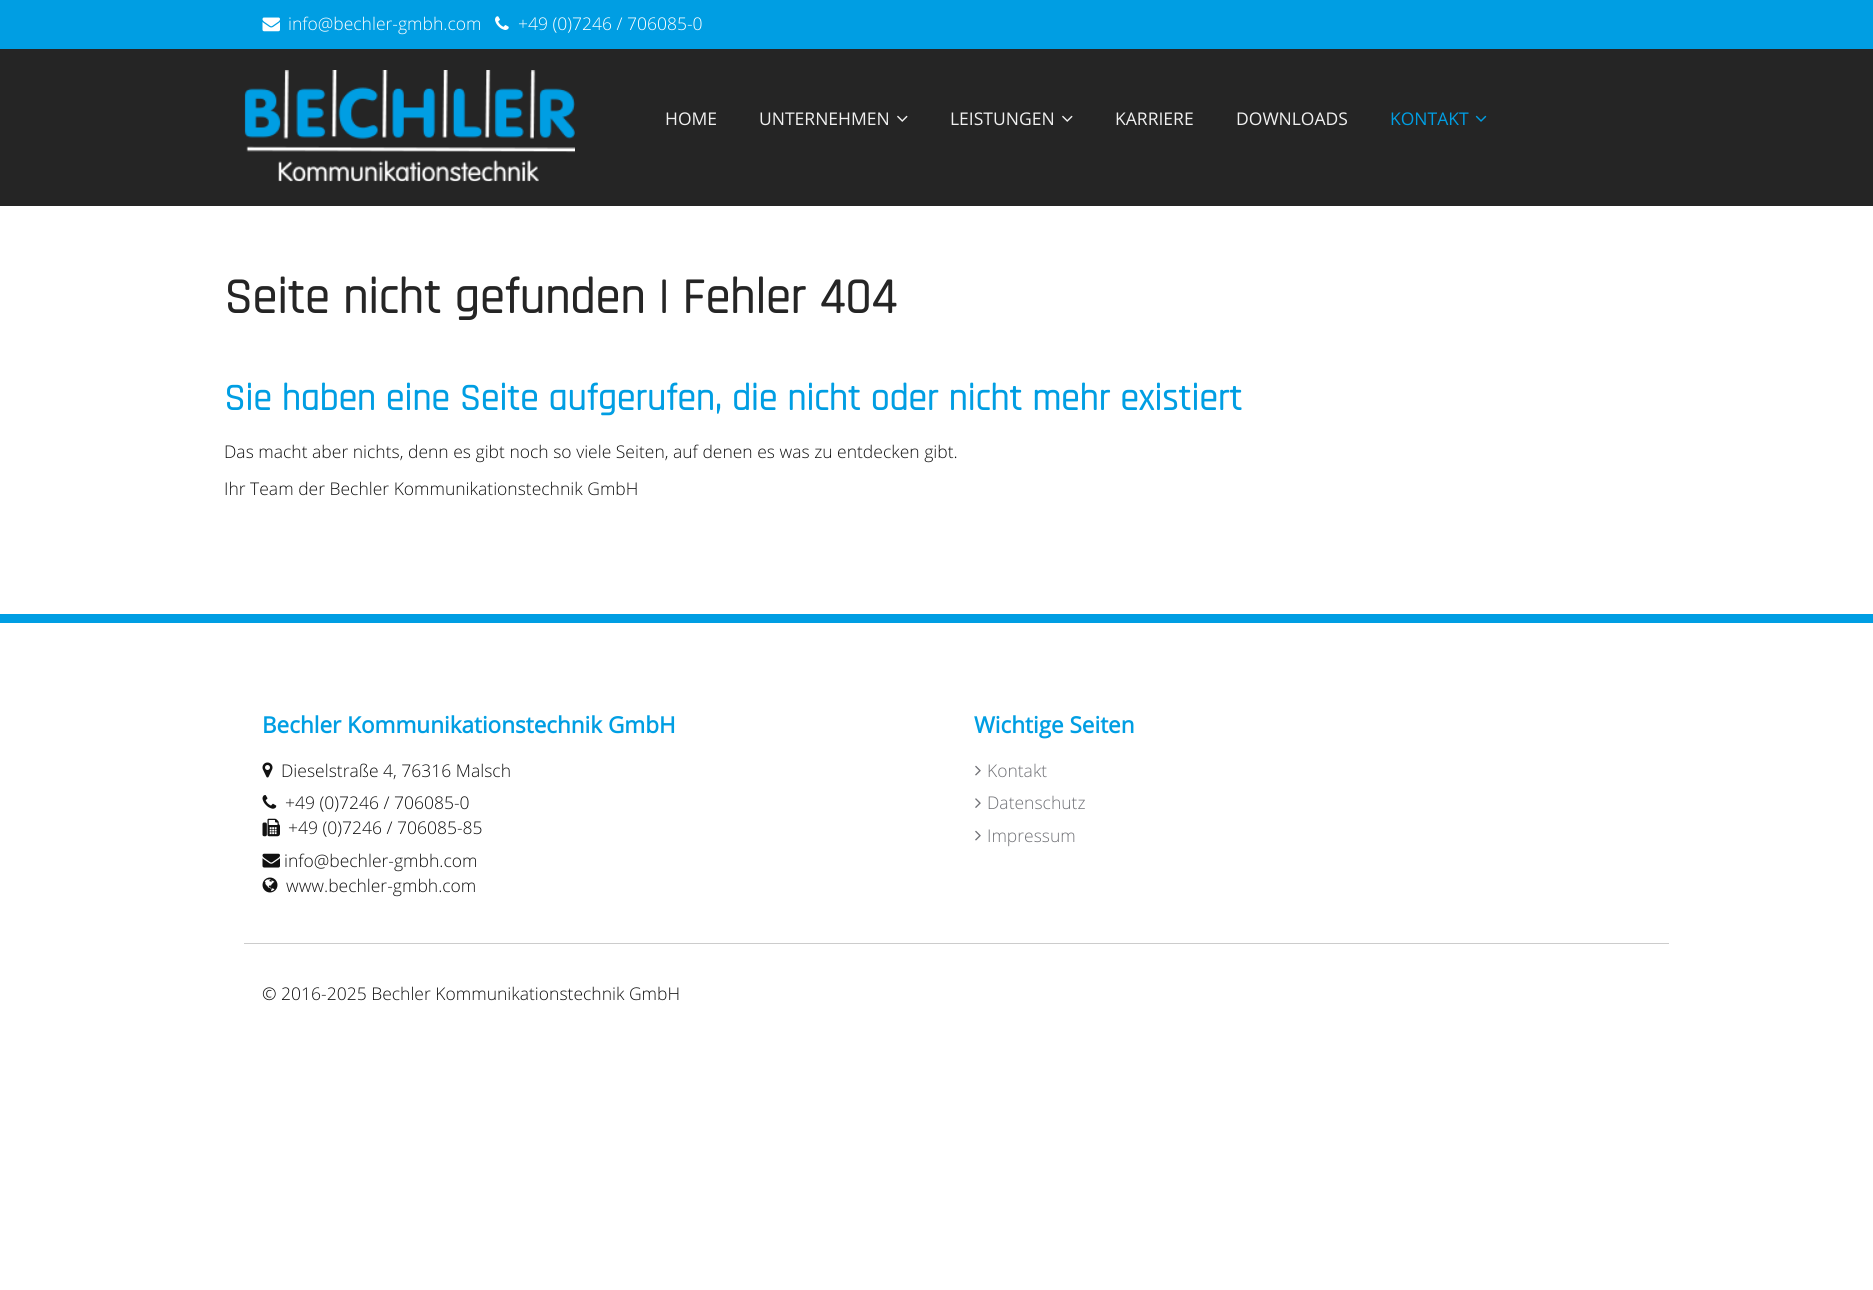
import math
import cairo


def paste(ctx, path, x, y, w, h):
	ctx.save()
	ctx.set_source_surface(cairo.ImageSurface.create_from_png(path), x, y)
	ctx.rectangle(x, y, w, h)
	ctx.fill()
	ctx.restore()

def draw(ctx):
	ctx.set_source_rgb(1, 1, 1)
	ctx.paint()
	ctx.set_source_rgb(0, 0.62, 0.89)
	ctx.rectangle(0, 0, 1873, 49)
	ctx.fill()
	paste(ctx, 'media/1.png', 262, 17, 18, 15)
	ctx.select_font_face('Open Sans Light')
	ctx.set_font_size(17.5)
	ctx.set_source_rgb(1, 1, 1)
	ctx.move_to(288, 30)
	ctx.show_text('info@bechler-gmbh.com')
	paste(ctx, 'media/2.png', 495, 16, 14, 14)
	ctx.move_to(518, 30)
	ctx.show_text('+49 (0)7246 / 706085-0')
	ctx.set_source_rgb(0.145, 0.145, 0.145)
	ctx.rectangle(0, 49, 1873, 157)
	ctx.fill()
	paste(ctx, 'media/3.png', 244, 70, 331, 112)
	ctx.select_font_face('Open Sans')
	ctx.set_source_rgb(0.941, 0.941, 0.941)
	ctx.move_to(665, 125)
	ctx.show_text('HOME')
	ctx.move_to(759, 125)
	ctx.show_text('UNTERNEHMEN')
	paste(ctx, 'media/4.png', 897, 115, 11, 7)
	ctx.move_to(950, 125)
	ctx.show_text('LEISTUNGEN')
	paste(ctx, 'media/4.png', 1062, 115, 11, 7)
	ctx.move_to(1115, 125)
	ctx.show_text('KARRIERE')
	ctx.move_to(1236, 125)
	ctx.show_text('DOWNLOADS')
	ctx.set_source_rgb(0, 0.62, 0.89)
	ctx.move_to(1390, 125)
	ctx.show_text('KONTAKT')
	paste(ctx, 'media/5.png', 1475, 115, 12, 7)
	ctx.select_font_face('Rajdhani', cairo.FONT_SLANT_NORMAL, cairo.FONT_WEIGHT_BOLD)
	ctx.set_font_size(50)
	ctx.set_source_rgb(0.145, 0.145, 0.145)
	ctx.move_to(224, 313)
	ctx.show_text('Seite nicht gefunden | Fehler 404')
	ctx.set_font_size(37.5)
	ctx.set_source_rgb(0, 0.62, 0.89)
	ctx.move_to(224, 410)
	ctx.show_text('Sie haben eine Seite aufgerufen, die nicht oder nicht mehr existiert')
	ctx.select_font_face('Open Sans Light')
	ctx.set_font_size(17.5)
	ctx.set_source_rgb(0.067, 0.067, 0.067)
	ctx.move_to(224, 458)
	ctx.show_text('Das macht aber nichts, denn es gibt noch so viele Seiten, auf denen es was zu entdecken gibt.')
	ctx.move_to(224, 495)
	ctx.show_text('Ihr Team der Bechler Kommunikationstechnik GmbH')
	ctx.set_source_rgb(0, 0.62, 0.89)
	ctx.rectangle(0, 614, 1873, 9)
	ctx.fill()
	ctx.select_font_face('Open Sans', cairo.FONT_SLANT_NORMAL, cairo.FONT_WEIGHT_BOLD)
	ctx.set_font_size(22.5)
	ctx.move_to(262, 733)
	ctx.show_text('Bechler Kommunikationstechnik GmbH')
	paste(ctx, 'media/6.png', 262, 762, 11, 16)
	ctx.select_font_face('Open Sans Light')
	ctx.set_font_size(17.5)
	ctx.set_source_rgb(0.067, 0.067, 0.067)
	ctx.move_to(281, 777)
	ctx.show_text('Dieselstraße 4, 76316 Malsch')
	paste(ctx, 'media/7.png', 262, 795, 15, 14)
	ctx.move_to(285, 809)
	ctx.show_text('+49 (0)7246 / 706085-0')
	paste(ctx, 'media/8.png', 262, 818, 18, 19)
	ctx.move_to(288, 834)
	ctx.show_text('+49 (0)7246 / 706085-85')
	paste(ctx, 'media/9.png', 262, 853, 18, 15)
	ctx.move_to(284, 867)
	ctx.show_text('info@bechler-gmbh.com')
	paste(ctx, 'media/10.png', 262, 877, 16, 16)
	ctx.move_to(286, 892)
	ctx.show_text('www.bechler-gmbh.com')
	ctx.select_font_face('Open Sans', cairo.FONT_SLANT_NORMAL, cairo.FONT_WEIGHT_BOLD)
	ctx.set_font_size(22.5)
	ctx.set_source_rgb(0, 0.62, 0.89)
	ctx.move_to(974, 733)
	ctx.show_text('Wichtige Seiten')
	paste(ctx, 'media/11.png', 975, 765, 6, 11)
	ctx.select_font_face('Open Sans Light')
	ctx.set_font_size(17.5)
	ctx.set_source_rgb(0.439, 0.443, 0.463)
	ctx.move_to(987, 777)
	ctx.show_text('Kontakt')
	paste(ctx, 'media/12.png', 975, 798, 6, 10)
	ctx.move_to(987, 809)
	ctx.show_text('Datenschutz')
	paste(ctx, 'media/11.png', 975, 830, 6, 11)
	ctx.move_to(987, 842)
	ctx.show_text('Impressum')
	ctx.set_source_rgb(0.8, 0.8, 0.8)
	ctx.rectangle(244, 943, 1425, 1)
	ctx.fill()
	ctx.set_source_rgb(0.067, 0.067, 0.067)
	ctx.move_to(262, 1000)
	ctx.show_text('© 2016-2025 Bechler Kommunikationstechnik GmbH')


surface = cairo.ImageSurface(cairo.FORMAT_RGB24, 1873, 1290)
ctx = cairo.Context(surface)
options = cairo.FontOptions()
options.set_hint_metrics(cairo.HINT_METRICS_OFF)
options.set_hint_style(cairo.HINT_STYLE_NONE)
ctx.set_font_options(options)
ctx.set_miter_limit(4)
draw(ctx)
surface.write_to_png('image.png')
